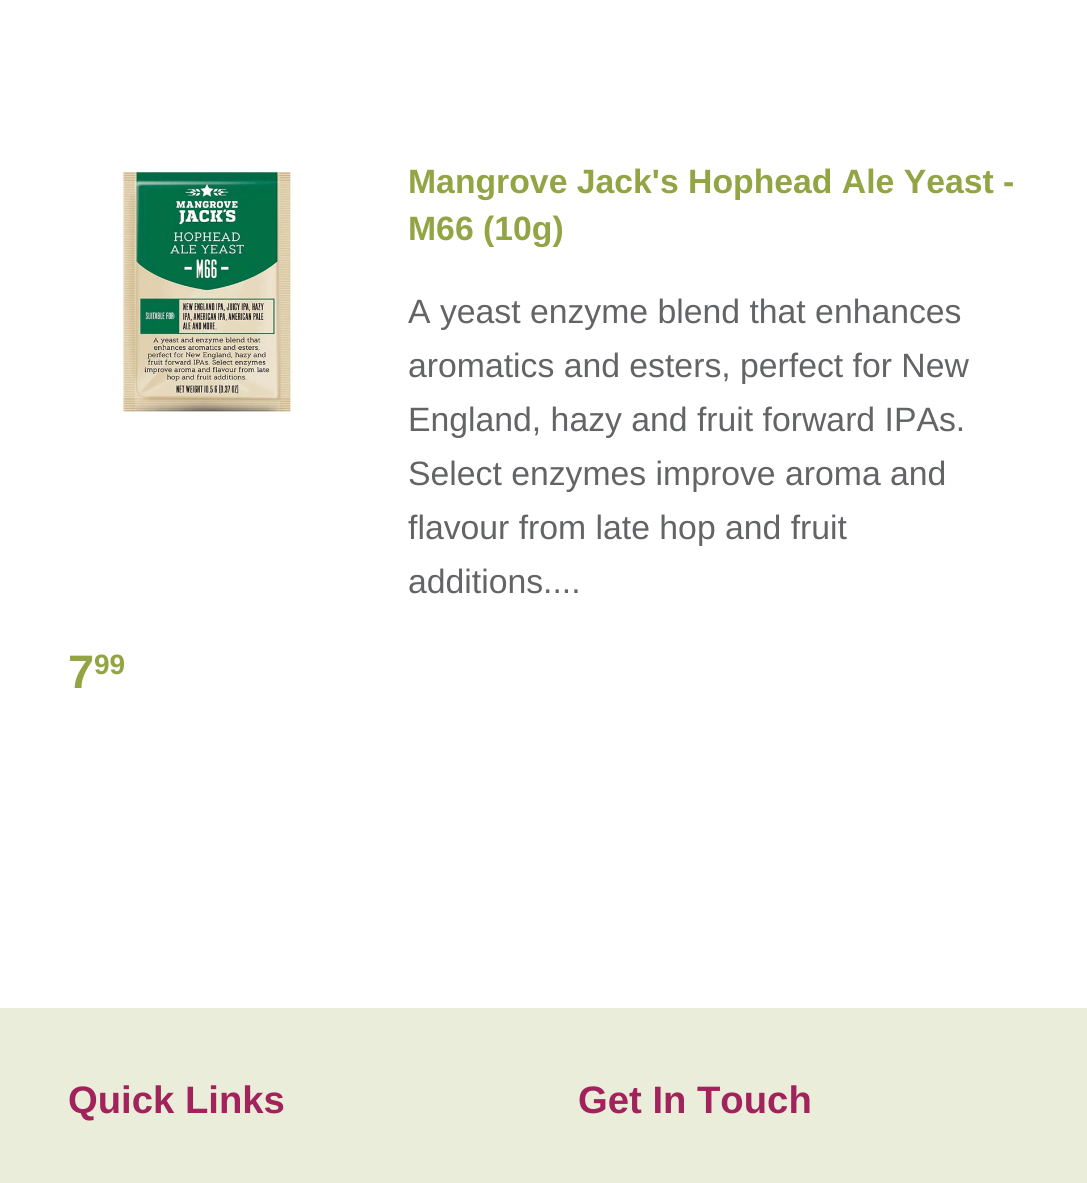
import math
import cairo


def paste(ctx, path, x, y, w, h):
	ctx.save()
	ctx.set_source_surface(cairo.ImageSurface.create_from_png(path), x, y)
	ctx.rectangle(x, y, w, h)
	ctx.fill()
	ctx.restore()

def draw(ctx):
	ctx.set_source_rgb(0.914, 0.929, 0.855)
	ctx.paint()
	ctx.set_source_rgb(1, 1, 1)
	ctx.rectangle(0, 0, 1087, 1008)
	ctx.fill()
	paste(ctx, 'media/1.png', 122, 171, 172, 241)
	ctx.select_font_face('Liberation Sans', cairo.FONT_SLANT_NORMAL, cairo.FONT_WEIGHT_BOLD)
	ctx.set_font_size(33.75)
	ctx.set_source_rgb(0.576, 0.643, 0.271)
	ctx.move_to(408, 193)
	ctx.show_text('Mangrove Jack\'s Hophead Ale Yeast -')
	ctx.move_to(408, 240)
	ctx.show_text('M66 (10g)')
	ctx.select_font_face('Liberation Sans')
	ctx.set_source_rgb(0.388, 0.392, 0.4)
	for x, y, s in [
		(408, 323, 'A yeast enzyme blend that enhances'),
		(408, 377, 'aromatics and esters, perfect for New'),
		(408, 431, 'England, hazy and fruit forward IPAs.'),
		(408, 485, 'Select enzymes improve aroma and'),
		(408, 539, 'flavour from late hop and fruit'),
		(408, 593, 'additions....'),
	]:
		ctx.move_to(x, y)
		ctx.show_text(s)
	ctx.select_font_face('Liberation Sans', cairo.FONT_SLANT_NORMAL, cairo.FONT_WEIGHT_BOLD)
	ctx.set_font_size(47)
	ctx.set_source_rgb(0.576, 0.643, 0.271)
	ctx.move_to(68, 688)
	ctx.show_text('7')
	ctx.set_font_size(28)
	ctx.move_to(94, 674)
	ctx.show_text('99')
	ctx.set_font_size(38.25)
	ctx.set_source_rgb(0.635, 0.133, 0.361)
	ctx.move_to(68, 1113)
	ctx.show_text('Quick Links')
	ctx.move_to(578, 1113)
	ctx.show_text('Get In Touch')


surface = cairo.ImageSurface(cairo.FORMAT_RGB24, 1087, 1183)
ctx = cairo.Context(surface)
options = cairo.FontOptions()
options.set_hint_metrics(cairo.HINT_METRICS_OFF)
options.set_hint_style(cairo.HINT_STYLE_NONE)
ctx.set_font_options(options)
ctx.set_miter_limit(4)
draw(ctx)
surface.write_to_png('image.png')
